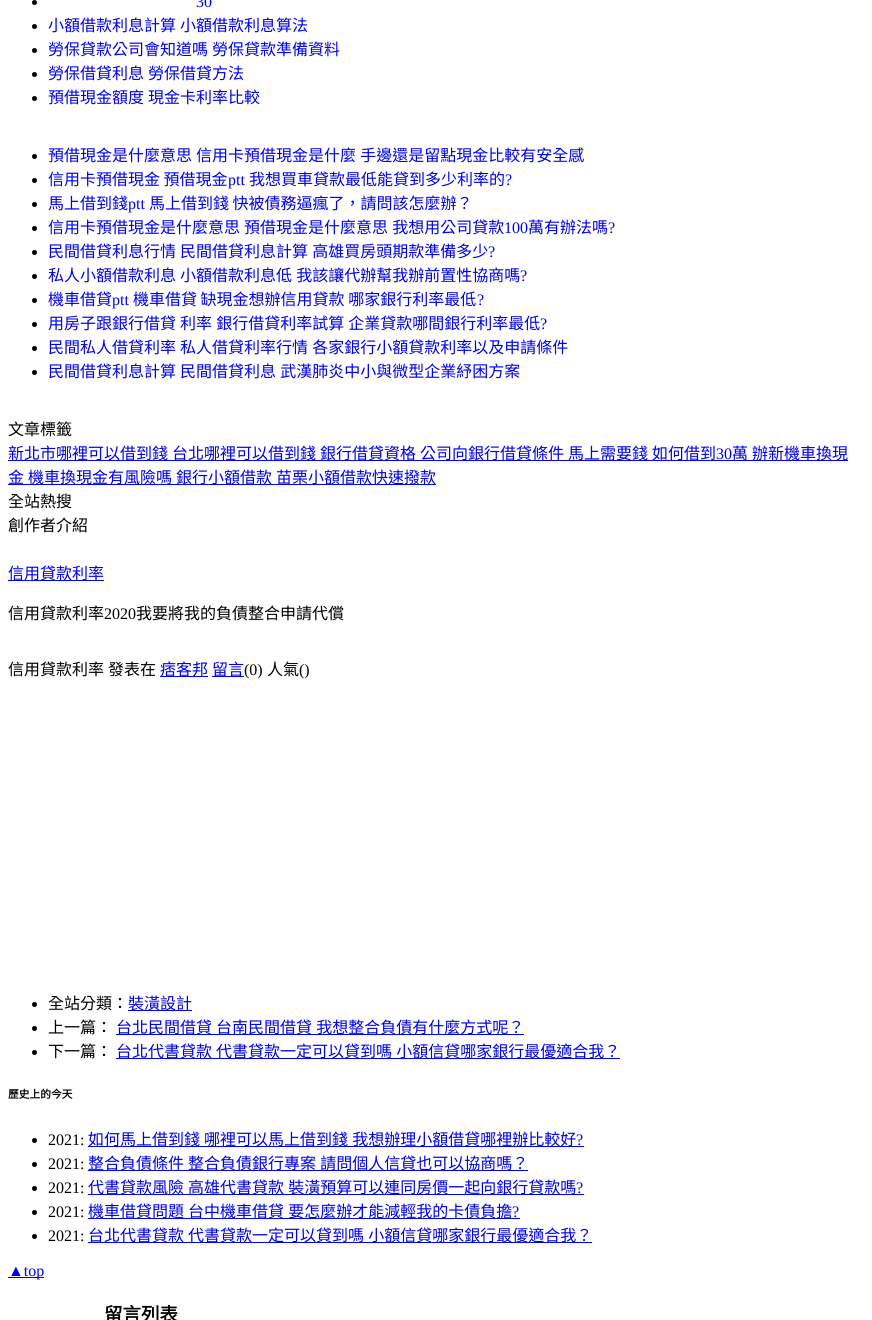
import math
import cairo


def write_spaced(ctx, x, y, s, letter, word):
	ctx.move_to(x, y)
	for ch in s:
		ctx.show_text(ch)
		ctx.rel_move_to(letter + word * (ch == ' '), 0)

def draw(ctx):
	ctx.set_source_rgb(1, 1, 1)
	ctx.paint()
	ctx.set_source_rgb(0, 0, 0)
	ctx.arc(34.5, 2.5, 2.5, 0, 2 * math.pi)
	ctx.fill()
	ctx.select_font_face('Liberation Serif')
	ctx.set_font_size(16)
	ctx.set_source_rgb(0, 0, 0.933)
	ctx.move_to(196, 7)
	ctx.show_text('30')
	ctx.set_source_rgb(0, 0, 0)
	ctx.new_path()
	ctx.arc(34.5, 26.5, 2.5, 0, 2 * math.pi)
	ctx.fill()
	ctx.select_font_face('Noto Sans CJK TC')
	ctx.set_source_rgb(0, 0, 0.933)
	write_spaced(ctx, 48, 31, '小額借款利息計算 小額借款利息算法', 0, 0.5)
	ctx.set_source_rgb(0, 0, 0)
	ctx.new_path()
	ctx.arc(34.5, 50.5, 2.5, 0, 2 * math.pi)
	ctx.fill()
	ctx.set_source_rgb(0, 0, 0.933)
	write_spaced(ctx, 48, 55, '勞保貸款公司會知道嗎 勞保貸款準備資料', 0, 0.5)
	ctx.set_source_rgb(0, 0, 0)
	ctx.new_path()
	ctx.arc(34.5, 74.5, 2.5, 0, 2 * math.pi)
	ctx.fill()
	ctx.set_source_rgb(0, 0, 0.933)
	write_spaced(ctx, 48, 79, '勞保借貸利息 勞保借貸方法', 0, 0.5)
	ctx.set_source_rgb(0, 0, 0)
	ctx.new_path()
	ctx.arc(34.5, 98.5, 2.5, 0, 2 * math.pi)
	ctx.fill()
	ctx.set_source_rgb(0, 0, 0.933)
	write_spaced(ctx, 48, 103, '預借現金額度 現金卡利率比較', 0, 0.5)
	ctx.set_source_rgb(0, 0, 0)
	ctx.new_path()
	ctx.arc(34.5, 156.5, 2.5, 0, 2 * math.pi)
	ctx.fill()
	ctx.set_source_rgb(0, 0, 0.933)
	write_spaced(ctx, 48, 161, '預借現金是什麼意思 信用卡預借現金是什麼 手邊還是留點現金比較有安全感', 0, 0.5)
	ctx.set_source_rgb(0, 0, 0)
	ctx.new_path()
	ctx.arc(34.5, 180.5, 2.5, 0, 2 * math.pi)
	ctx.fill()
	ctx.set_source_rgb(0, 0, 0.933)
	ctx.move_to(48, 185)
	ctx.show_text('信用卡預借現金 預借現金')
	ctx.select_font_face('Liberation Serif')
	ctx.move_to(228, 185)
	ctx.show_text('ptt')
	ctx.select_font_face('Noto Sans CJK TC')
	ctx.move_to(249, 185)
	ctx.show_text('我想買車貸款最低能貸到多少利率的')
	ctx.select_font_face('Liberation Serif')
	ctx.move_to(505, 185)
	ctx.show_text('?')
	ctx.set_source_rgb(0, 0, 0)
	ctx.new_path()
	ctx.arc(34.5, 204.5, 2.5, 0, 2 * math.pi)
	ctx.fill()
	ctx.select_font_face('Noto Sans CJK TC')
	ctx.set_source_rgb(0, 0, 0.933)
	ctx.move_to(48, 209)
	ctx.show_text('馬上借到錢')
	ctx.select_font_face('Liberation Serif')
	ctx.move_to(128, 209)
	ctx.show_text('ptt')
	ctx.select_font_face('Noto Sans CJK TC')
	ctx.move_to(149, 209)
	ctx.show_text('馬上借到錢 快被債務逼瘋了，請問該怎麼辦？')
	ctx.set_source_rgb(0, 0, 0)
	ctx.new_path()
	ctx.arc(34.5, 228.5, 2.5, 0, 2 * math.pi)
	ctx.fill()
	ctx.set_source_rgb(0, 0, 0.933)
	write_spaced(ctx, 48, 233, '信用卡預借現金是什麼意思 預借現金是什麼意思 我想用公司貸款', 0, 0.5)
	ctx.select_font_face('Liberation Serif')
	ctx.move_to(504, 233)
	ctx.show_text('100')
	ctx.select_font_face('Noto Sans CJK TC')
	ctx.move_to(528, 233)
	ctx.show_text('萬有辦法嗎')
	ctx.select_font_face('Liberation Serif')
	ctx.move_to(608, 233)
	ctx.show_text('?')
	ctx.set_source_rgb(0, 0, 0)
	ctx.new_path()
	ctx.arc(34.5, 252.5, 2.5, 0, 2 * math.pi)
	ctx.fill()
	ctx.select_font_face('Noto Sans CJK TC')
	ctx.set_source_rgb(0, 0, 0.933)
	write_spaced(ctx, 48, 257, '民間借貸利息行情 民間借貸利息計算 高雄買房頭期款準備多少', 0, 0.5)
	ctx.select_font_face('Liberation Serif')
	ctx.move_to(488, 257)
	ctx.show_text('?')
	ctx.set_source_rgb(0, 0, 0)
	ctx.new_path()
	ctx.arc(34.5, 276.5, 2.5, 0, 2 * math.pi)
	ctx.fill()
	ctx.select_font_face('Noto Sans CJK TC')
	ctx.set_source_rgb(0, 0, 0.933)
	write_spaced(ctx, 48, 281, '私人小額借款利息 小額借款利息低 我該讓代辦幫我辦前置性協商嗎', 0, 0.5)
	ctx.select_font_face('Liberation Serif')
	ctx.move_to(520, 281)
	ctx.show_text('?')
	ctx.set_source_rgb(0, 0, 0)
	ctx.new_path()
	ctx.arc(34.5, 300.5, 2.5, 0, 2 * math.pi)
	ctx.fill()
	ctx.select_font_face('Noto Sans CJK TC')
	ctx.set_source_rgb(0, 0, 0.933)
	ctx.move_to(48, 305)
	ctx.show_text('機車借貸')
	ctx.select_font_face('Liberation Serif')
	ctx.move_to(112, 305)
	ctx.show_text('ptt')
	ctx.select_font_face('Noto Sans CJK TC')
	ctx.move_to(133, 305)
	ctx.show_text('機車借貸 缺現金想辦信用貸款 哪家銀行利率最低')
	ctx.select_font_face('Liberation Serif')
	ctx.move_to(477, 305)
	ctx.show_text('?')
	ctx.set_source_rgb(0, 0, 0)
	ctx.new_path()
	ctx.arc(34.5, 324.5, 2.5, 0, 2 * math.pi)
	ctx.fill()
	ctx.select_font_face('Noto Sans CJK TC')
	ctx.set_source_rgb(0, 0, 0.933)
	write_spaced(ctx, 48, 329, '用房子跟銀行借貸 利率 銀行借貸利率試算 企業貸款哪間銀行利率最低', 0, 0.5)
	ctx.select_font_face('Liberation Serif')
	ctx.move_to(540, 329)
	ctx.show_text('?')
	ctx.set_source_rgb(0, 0, 0)
	ctx.new_path()
	ctx.arc(34.5, 348.5, 2.5, 0, 2 * math.pi)
	ctx.fill()
	ctx.select_font_face('Noto Sans CJK TC')
	ctx.set_source_rgb(0, 0, 0.933)
	write_spaced(ctx, 48, 353, '民間私人借貸利率 私人借貸利率行情 各家銀行小額貸款利率以及申請條件', 0, 0.5)
	ctx.set_source_rgb(0, 0, 0)
	ctx.new_path()
	ctx.arc(34.5, 372.5, 2.5, 0, 2 * math.pi)
	ctx.fill()
	ctx.set_source_rgb(0, 0, 0.933)
	write_spaced(ctx, 48, 377, '民間借貸利息計算 民間借貸利息 武漢肺炎中小與微型企業紓困方案', 0, 0.5)
	ctx.set_source_rgb(0, 0, 0)
	ctx.move_to(8, 435)
	ctx.show_text('文章標籤')
	ctx.set_source_rgb(0, 0, 0.933)
	ctx.rectangle(8, 460, 840, 1)
	ctx.fill()
	for x, y, s in [
		(8, 459, '新北市哪裡可以借到錢 台北哪裡可以借到錢'),
		(320, 459, '銀行借貸資格 公司向銀行借貸條件'),
		(568, 459, '馬上需要錢 如何借到'),
	]:
		write_spaced(ctx, x, y, s, 0, 0.5)
	ctx.select_font_face('Liberation Serif')
	ctx.move_to(716, 459)
	ctx.show_text('30')
	ctx.select_font_face('Noto Sans CJK TC')
	ctx.move_to(732, 459)
	ctx.show_text('萬')
	ctx.move_to(752, 459)
	ctx.show_text('辦新機車換現')
	ctx.rectangle(8, 484, 428, 1)
	ctx.fill()
	write_spaced(ctx, 8, 483, '金 機車換現金有風險嗎', 0, 0.5)
	write_spaced(ctx, 176, 483, '銀行小額借款 苗栗小額借款快速撥款', 0, 0.5)
	ctx.set_source_rgb(0, 0, 0)
	ctx.move_to(8, 507)
	ctx.show_text('全站熱搜')
	ctx.move_to(8, 531)
	ctx.show_text('創作者介紹')
	ctx.set_source_rgb(0, 0, 0.933)
	ctx.rectangle(8, 580, 96, 1)
	ctx.fill()
	ctx.move_to(8, 579)
	ctx.show_text('信用貸款利率')
	ctx.set_source_rgb(0, 0, 0)
	ctx.move_to(8, 619)
	ctx.show_text('信用貸款利率')
	ctx.select_font_face('Liberation Serif')
	ctx.move_to(104, 619)
	ctx.show_text('2020')
	ctx.select_font_face('Noto Sans CJK TC')
	ctx.move_to(136, 619)
	ctx.show_text('我要將我的負債整合申請代償')
	write_spaced(ctx, 8, 675, '信用貸款利率 發表在', 0, 0.5)
	ctx.set_source_rgb(0, 0, 0.933)
	ctx.rectangle(160, 676, 48, 1)
	ctx.fill()
	ctx.move_to(160, 675)
	ctx.show_text('痞客邦')
	ctx.rectangle(212, 676, 32, 1)
	ctx.fill()
	ctx.move_to(212, 675)
	ctx.show_text('留言')
	ctx.select_font_face('Liberation Serif')
	ctx.set_source_rgb(0, 0, 0)
	ctx.move_to(244, 675)
	ctx.show_text('(0)')
	ctx.select_font_face('Noto Sans CJK TC')
	ctx.move_to(267, 675)
	ctx.show_text('人氣')
	ctx.select_font_face('Liberation Serif')
	ctx.move_to(299, 675)
	ctx.show_text('()')
	ctx.new_path()
	ctx.arc(34.5, 1004.5, 2.5, 0, 2 * math.pi)
	ctx.fill()
	ctx.select_font_face('Noto Sans CJK TC')
	ctx.move_to(48, 1009)
	ctx.show_text('全站分類：')
	ctx.set_source_rgb(0, 0, 0.933)
	ctx.rectangle(128, 1010, 64, 1)
	ctx.fill()
	ctx.move_to(128, 1009)
	ctx.show_text('裝潢設計')
	ctx.set_source_rgb(0, 0, 0)
	ctx.new_path()
	ctx.arc(34.5, 1028.5, 2.5, 0, 2 * math.pi)
	ctx.fill()
	ctx.move_to(48, 1033)
	ctx.show_text('上一篇：')
	ctx.set_source_rgb(0, 0, 0.933)
	ctx.rectangle(116, 1034, 408, 1)
	ctx.fill()
	write_spaced(ctx, 116, 1033, '台北民間借貸 台南民間借貸 我想整合負債有什麼方式呢？', 0, 0.5)
	ctx.set_source_rgb(0, 0, 0)
	ctx.new_path()
	ctx.arc(34.5, 1052.5, 2.5, 0, 2 * math.pi)
	ctx.fill()
	ctx.move_to(48, 1057)
	ctx.show_text('下一篇：')
	ctx.set_source_rgb(0, 0, 0.933)
	ctx.rectangle(116, 1058, 504, 1)
	ctx.fill()
	write_spaced(ctx, 116, 1057, '台北代書貸款 代書貸款一定可以貸到嗎 小額信貸哪家銀行最優適合我？', 0, 0.5)
	ctx.select_font_face('Noto Sans CJK TC', cairo.FONT_SLANT_NORMAL, cairo.FONT_WEIGHT_BOLD)
	ctx.set_font_size(10.75)
	ctx.set_source_rgb(0, 0, 0)
	ctx.move_to(8, 1098)
	ctx.show_text('歷史上的今天')
	ctx.new_path()
	ctx.arc(34.5, 1140.5, 2.5, 0, 2 * math.pi)
	ctx.fill()
	ctx.select_font_face('Liberation Serif')
	ctx.set_font_size(16)
	ctx.move_to(48, 1145)
	ctx.show_text('2021:')
	ctx.set_source_rgb(0, 0, 0.933)
	ctx.rectangle(88, 1146, 496, 1)
	ctx.fill()
	ctx.select_font_face('Noto Sans CJK TC')
	write_spaced(ctx, 88, 1145, '如何馬上借到錢 哪裡可以馬上借到錢 我想辦理小額借貸哪裡辦比較好', 0, 0.5)
	ctx.select_font_face('Liberation Serif')
	ctx.move_to(576, 1145)
	ctx.show_text('?')
	ctx.set_source_rgb(0, 0, 0)
	ctx.new_path()
	ctx.arc(34.5, 1164.5, 2.5, 0, 2 * math.pi)
	ctx.fill()
	ctx.move_to(48, 1169)
	ctx.show_text('2021:')
	ctx.set_source_rgb(0, 0, 0.933)
	ctx.rectangle(88, 1170, 440, 1)
	ctx.fill()
	ctx.select_font_face('Noto Sans CJK TC')
	write_spaced(ctx, 88, 1169, '整合負債條件 整合負債銀行專案 請問個人信貸也可以協商嗎？', 0, 0.5)
	ctx.set_source_rgb(0, 0, 0)
	ctx.new_path()
	ctx.arc(34.5, 1188.5, 2.5, 0, 2 * math.pi)
	ctx.fill()
	ctx.select_font_face('Liberation Serif')
	ctx.move_to(48, 1193)
	ctx.show_text('2021:')
	ctx.set_source_rgb(0, 0, 0.933)
	ctx.rectangle(88, 1194, 496, 1)
	ctx.fill()
	ctx.select_font_face('Noto Sans CJK TC')
	write_spaced(ctx, 88, 1193, '代書貸款風險 高雄代書貸款 裝潢預算可以連同房價一起向銀行貸款嗎', 0, 0.5)
	ctx.select_font_face('Liberation Serif')
	ctx.move_to(576, 1193)
	ctx.show_text('?')
	ctx.set_source_rgb(0, 0, 0)
	ctx.new_path()
	ctx.arc(34.5, 1212.5, 2.5, 0, 2 * math.pi)
	ctx.fill()
	ctx.move_to(48, 1217)
	ctx.show_text('2021:')
	ctx.set_source_rgb(0, 0, 0.933)
	ctx.rectangle(88, 1218, 432, 1)
	ctx.fill()
	ctx.select_font_face('Noto Sans CJK TC')
	write_spaced(ctx, 88, 1217, '機車借貸問題 台中機車借貸 要怎麼辦才能減輕我的卡債負擔', 0, 0.5)
	ctx.select_font_face('Liberation Serif')
	ctx.move_to(512, 1217)
	ctx.show_text('?')
	ctx.set_source_rgb(0, 0, 0)
	ctx.new_path()
	ctx.arc(34.5, 1236.5, 2.5, 0, 2 * math.pi)
	ctx.fill()
	ctx.move_to(48, 1241)
	ctx.show_text('2021:')
	ctx.set_source_rgb(0, 0, 0.933)
	ctx.rectangle(88, 1242, 504, 1)
	ctx.fill()
	ctx.select_font_face('Noto Sans CJK TC')
	write_spaced(ctx, 88, 1241, '台北代書貸款 代書貸款一定可以貸到嗎 小額信貸哪家銀行最優適合我？', 0, 0.5)
	ctx.rectangle(8, 1277, 36, 1)
	ctx.fill()
	ctx.select_font_face('Liberation Serif')
	ctx.move_to(8, 1276)
	ctx.show_text('▲top')
	ctx.select_font_face('Noto Sans CJK TC', cairo.FONT_SLANT_NORMAL, cairo.FONT_WEIGHT_BOLD)
	ctx.set_font_size(18.5)
	ctx.set_source_rgb(0, 0, 0)
	ctx.move_to(104, 1321)
	ctx.show_text('留言列表')


surface = cairo.ImageSurface(cairo.FORMAT_RGB24, 872, 1320)
ctx = cairo.Context(surface)
options = cairo.FontOptions()
options.set_hint_metrics(cairo.HINT_METRICS_OFF)
options.set_hint_style(cairo.HINT_STYLE_NONE)
ctx.set_font_options(options)
ctx.set_miter_limit(4)
draw(ctx)
surface.write_to_png('image.png')
